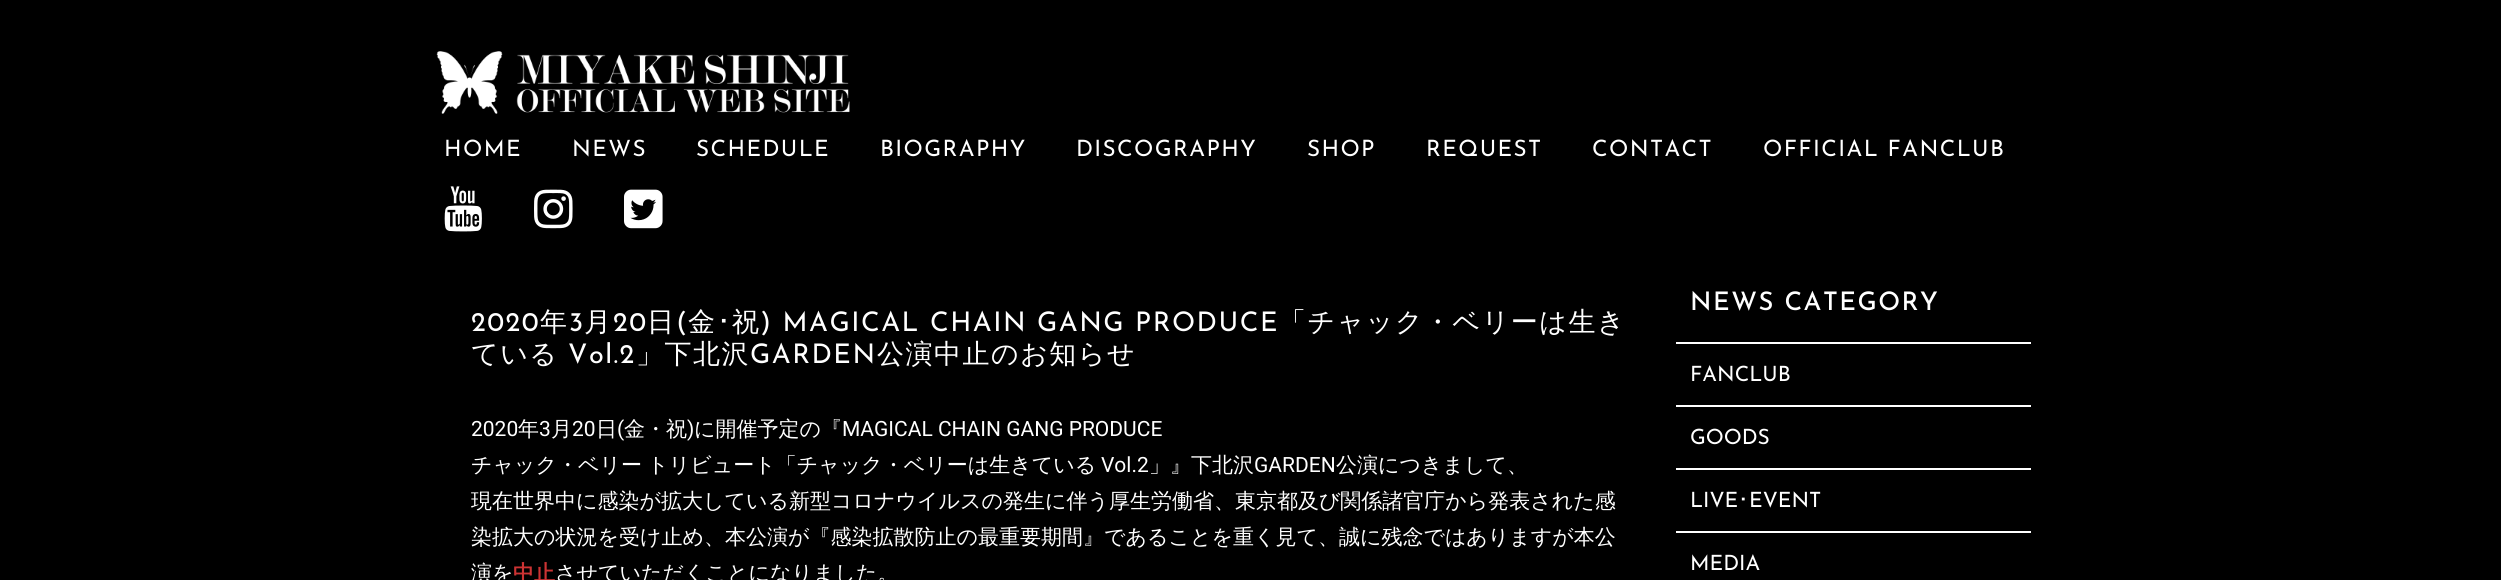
import math
import cairo


def write_spaced(ctx, x, y, s, letter, word):
	ctx.move_to(x, y)
	for ch in s:
		ctx.show_text(ch)
		ctx.rel_move_to(letter + word * (ch == ' '), 0)

def paste(ctx, path, x, y, w, h):
	ctx.save()
	ctx.set_source_surface(cairo.ImageSurface.create_from_png(path), x, y)
	ctx.rectangle(x, y, w, h)
	ctx.fill()
	ctx.restore()

def draw(ctx):
	ctx.set_source_rgb(0, 0, 0)
	ctx.paint()
	paste(ctx, 'media/1.png', 436, 51, 414, 63)
	ctx.select_font_face('Josefin Sans')
	ctx.set_font_size(22.5)
	ctx.set_source_rgb(1, 1, 1)
	for x, y, s in [
		(444, 156, 'HOME'),
		(572, 156, 'NEWS'),
		(696, 156, 'SCHEDULE'),
		(880, 156, 'BIOGRAPHY'),
		(1076, 156, 'DISCOGRAPHY'),
		(1307, 156, 'SHOP'),
		(1426, 156, 'REQUEST'),
		(1592, 156, 'CONTACT'),
		(1763, 156, 'OFFICIAL FANCLUB'),
	]:
		write_spaced(ctx, x, y, s, 1.4, 0)
	paste(ctx, 'media/2.png', 444, 186, 38, 46)
	paste(ctx, 'media/3.png', 534, 189, 39, 40)
	paste(ctx, 'media/4.png', 624, 189, 39, 40)
	ctx.set_font_size(27)
	write_spaced(ctx, 471, 331, '2020', 1.5, 0)
	ctx.select_font_face('WenQuanYi Zen Hei Medium')
	write_spaced(ctx, 540, 331, '年', 1.5, 0)
	ctx.select_font_face('Josefin Sans')
	write_spaced(ctx, 569, 331, '3', 1.5, 0)
	ctx.select_font_face('WenQuanYi Zen Hei Medium')
	write_spaced(ctx, 584, 331, '月', 1.5, 0)
	ctx.select_font_face('Josefin Sans')
	write_spaced(ctx, 613, 331, '20', 1.5, 0)
	ctx.select_font_face('WenQuanYi Zen Hei Medium')
	write_spaced(ctx, 647, 331, '日', 1.5, 0)
	ctx.select_font_face('Josefin Sans')
	write_spaced(ctx, 676, 331, '(', 1.5, 0)
	ctx.select_font_face('WenQuanYi Zen Hei Medium')
	write_spaced(ctx, 688, 331, '金', 1.5, 0)
	ctx.select_font_face('IPAPGothic')
	write_spaced(ctx, 717, 331, '･', 1.5, 0)
	ctx.select_font_face('WenQuanYi Zen Hei Medium')
	write_spaced(ctx, 732, 331, '祝', 1.5, 0)
	ctx.select_font_face('Josefin Sans')
	write_spaced(ctx, 760, 331, ') MAGICAL CHAIN GANG PRODUCE', 1.5, 0)
	ctx.select_font_face('WenQuanYi Zen Hei Medium')
	write_spaced(ctx, 1279, 331, '「チャック・ベリーは生き', 1.5, 0)
	write_spaced(ctx, 471, 363, 'ている', 1.5, 0)
	ctx.select_font_face('Josefin Sans')
	write_spaced(ctx, 568, 363, 'Vol.2', 1.5, 0)
	ctx.select_font_face('WenQuanYi Zen Hei Medium')
	write_spaced(ctx, 636, 363, '」下北沢', 1.5, 0)
	ctx.select_font_face('Josefin Sans')
	write_spaced(ctx, 750, 363, 'GARDEN', 1.5, 0)
	ctx.select_font_face('WenQuanYi Zen Hei Medium')
	write_spaced(ctx, 877, 363, '公演中止のお知らせ', 1.5, 0)
	ctx.select_font_face('Roboto')
	ctx.set_font_size(21)
	ctx.move_to(471, 436)
	ctx.show_text('2020')
	ctx.select_font_face('WenQuanYi Zen Hei Medium')
	ctx.move_to(518, 436)
	ctx.show_text('年')
	ctx.select_font_face('Roboto')
	ctx.move_to(539, 436)
	ctx.show_text('3')
	ctx.select_font_face('WenQuanYi Zen Hei Medium')
	ctx.move_to(551, 436)
	ctx.show_text('月')
	ctx.select_font_face('Roboto')
	ctx.move_to(572, 436)
	ctx.show_text('20')
	ctx.select_font_face('WenQuanYi Zen Hei Medium')
	ctx.move_to(596, 436)
	ctx.show_text('日')
	ctx.select_font_face('Roboto')
	ctx.move_to(617, 436)
	ctx.show_text('(')
	ctx.select_font_face('WenQuanYi Zen Hei Medium')
	ctx.move_to(624, 436)
	ctx.show_text('金・祝')
	ctx.select_font_face('Roboto')
	ctx.move_to(687, 436)
	ctx.show_text(')')
	ctx.select_font_face('WenQuanYi Zen Hei Medium')
	ctx.move_to(694, 436)
	ctx.show_text('に開催予定の『')
	ctx.select_font_face('Roboto')
	ctx.move_to(842, 436)
	ctx.show_text('MAGICAL CHAIN GANG PRODUCE')
	ctx.select_font_face('WenQuanYi Zen Hei Medium')
	write_spaced(ctx, 471, 472, 'チャック・ベリー トリビュート「チャック・ベリーは生きている', 0, -1)
	ctx.select_font_face('Roboto')
	ctx.move_to(1101, 472)
	ctx.show_text('Vol.2')
	ctx.select_font_face('WenQuanYi Zen Hei Medium')
	ctx.move_to(1149, 472)
	ctx.show_text('」』下北沢')
	ctx.select_font_face('Roboto')
	ctx.move_to(1254, 472)
	ctx.show_text('GARDEN')
	ctx.select_font_face('WenQuanYi Zen Hei Medium')
	for x, y, s in [
		(1336, 472, '公演につきまして、'),
		(471, 508, '現在世界中に感染が拡大している新型コロナウイルスの発生に伴う厚生労働省、東京都及び関係諸官庁から発表された感'),
		(471, 544, '染拡大の状況を受け止め、本公演が『感染拡散防止の最重要期間』であることを重く見て、誠に残念ではありますが本公'),
		(471, 580, '演を'),
	]:
		ctx.move_to(x, y)
		ctx.show_text(s)
	ctx.select_font_face('WenQuanYi Zen Hei', cairo.FONT_SLANT_NORMAL, cairo.FONT_WEIGHT_BOLD)
	ctx.set_source_rgb(0.8, 0.2, 0.2)
	ctx.move_to(513, 580)
	ctx.show_text('中止')
	ctx.select_font_face('WenQuanYi Zen Hei Medium')
	ctx.set_source_rgb(1, 1, 1)
	ctx.move_to(555, 580)
	ctx.show_text('させていただくことになりました。')
	ctx.select_font_face('Josefin Sans Medium')
	ctx.set_font_size(25.5)
	write_spaced(ctx, 1690, 310, 'NEWS CATEGORY', 1.5, 0)
	ctx.rectangle(1676, 342, 355, 2)
	ctx.fill()
	ctx.select_font_face('Josefin Sans')
	ctx.set_font_size(21)
	ctx.move_to(1690, 381)
	ctx.show_text('FANCLUB')
	ctx.rectangle(1676, 405, 355, 2)
	ctx.fill()
	ctx.move_to(1690, 444)
	ctx.show_text('GOODS')
	ctx.rectangle(1676, 468, 355, 2)
	ctx.fill()
	ctx.move_to(1690, 507)
	ctx.show_text('LIVE')
	ctx.select_font_face('IPAPGothic')
	ctx.move_to(1738, 507)
	ctx.show_text('･')
	ctx.select_font_face('Josefin Sans')
	ctx.move_to(1749, 507)
	ctx.show_text('EVENT')
	ctx.rectangle(1676, 531, 355, 2)
	ctx.fill()
	ctx.move_to(1690, 570)
	ctx.show_text('MEDIA')


surface = cairo.ImageSurface(cairo.FORMAT_RGB24, 2501, 580)
ctx = cairo.Context(surface)
options = cairo.FontOptions()
options.set_hint_metrics(cairo.HINT_METRICS_OFF)
options.set_hint_style(cairo.HINT_STYLE_NONE)
ctx.set_font_options(options)
ctx.set_miter_limit(4)
draw(ctx)
surface.write_to_png('image.png')
